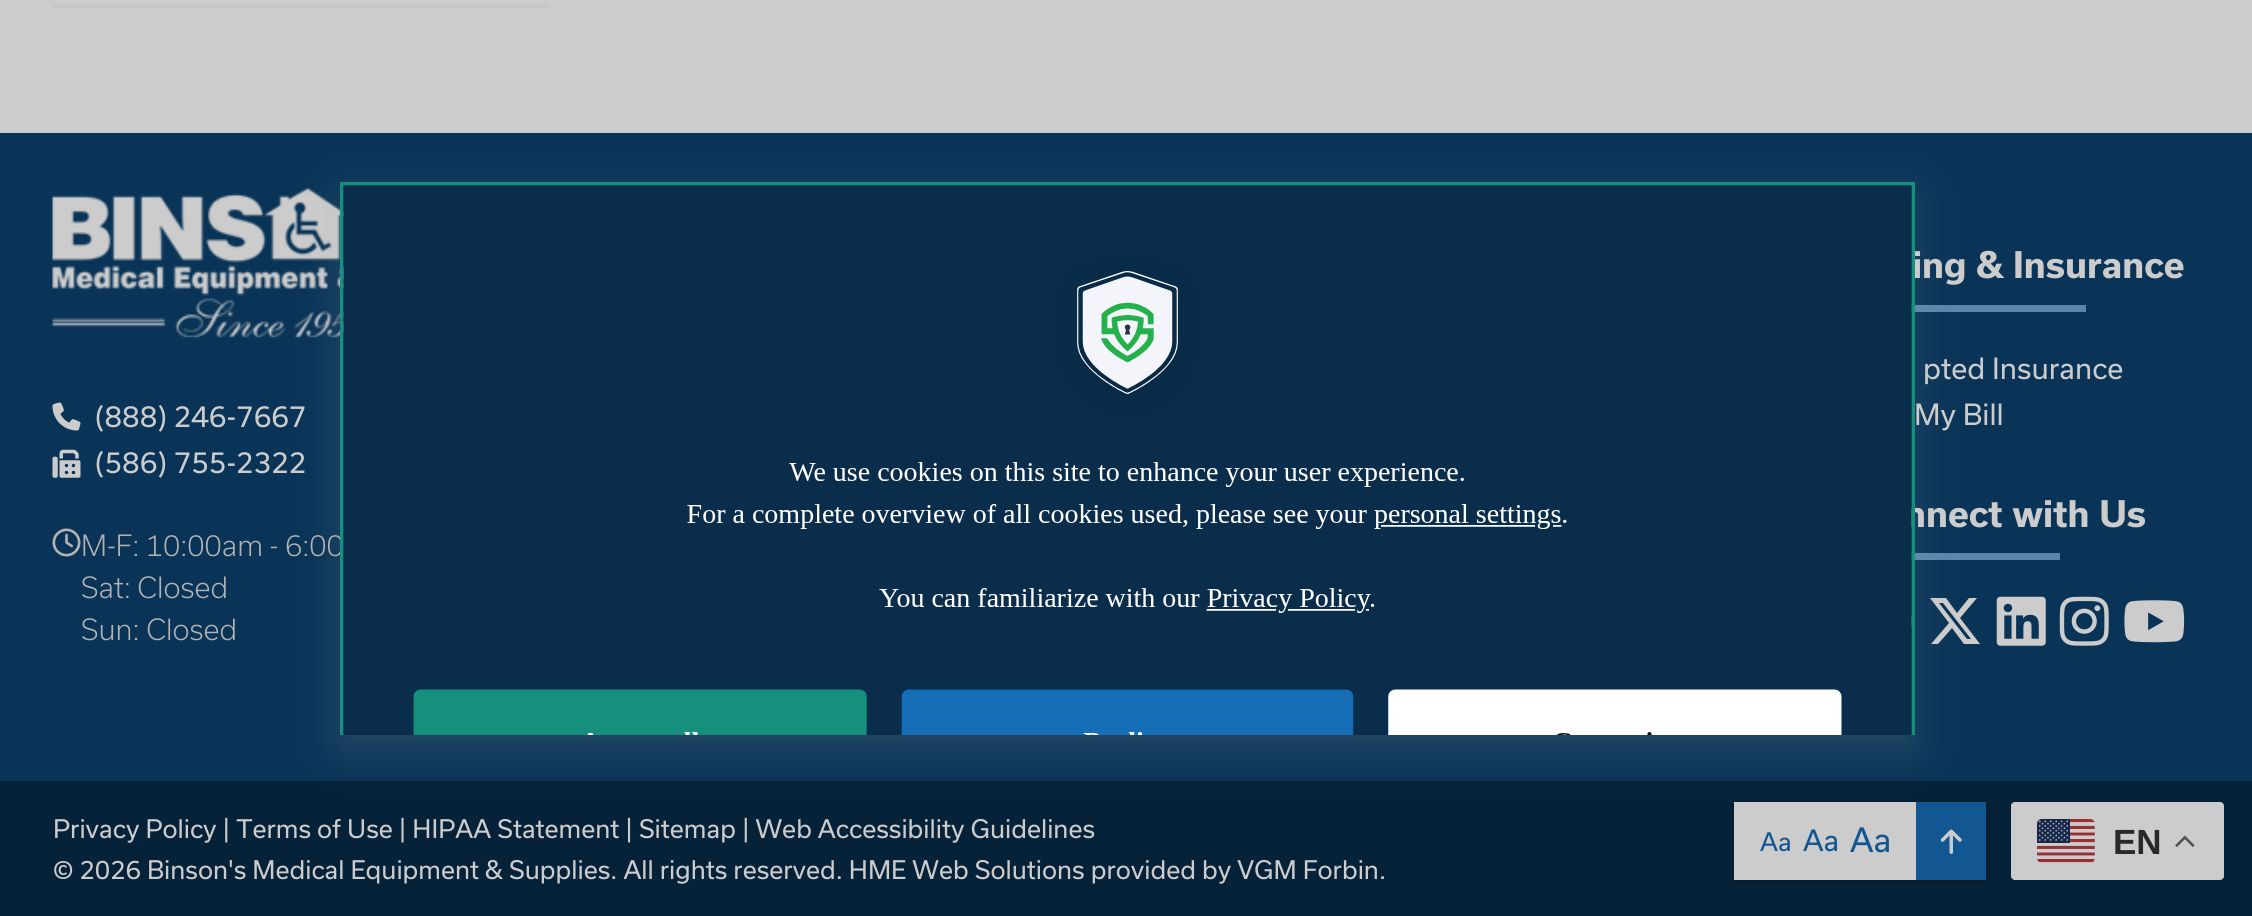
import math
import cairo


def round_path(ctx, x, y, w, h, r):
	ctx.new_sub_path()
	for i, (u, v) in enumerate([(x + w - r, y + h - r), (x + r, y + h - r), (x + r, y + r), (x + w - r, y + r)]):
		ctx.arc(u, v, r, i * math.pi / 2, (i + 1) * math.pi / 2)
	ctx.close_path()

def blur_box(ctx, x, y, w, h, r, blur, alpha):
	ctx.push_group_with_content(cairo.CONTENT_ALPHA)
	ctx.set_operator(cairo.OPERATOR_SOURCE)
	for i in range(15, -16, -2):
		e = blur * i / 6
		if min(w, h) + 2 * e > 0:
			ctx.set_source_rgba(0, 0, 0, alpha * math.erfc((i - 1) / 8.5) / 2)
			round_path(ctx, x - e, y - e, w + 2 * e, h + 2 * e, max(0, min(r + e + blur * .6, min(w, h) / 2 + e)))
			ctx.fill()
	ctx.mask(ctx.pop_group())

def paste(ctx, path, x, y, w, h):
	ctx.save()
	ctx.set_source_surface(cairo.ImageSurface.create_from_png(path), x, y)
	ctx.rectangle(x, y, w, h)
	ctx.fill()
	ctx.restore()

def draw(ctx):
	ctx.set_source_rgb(0.8, 0.8, 0.8)
	ctx.paint()
	ctx.set_source_rgb(0.78, 0.78, 0.78)
	ctx.rectangle(53, 4, 497, 4)
	ctx.fill()
	ctx.set_source_rgb(0.039, 0.204, 0.341)
	ctx.rectangle(0, 133, 2252, 648)
	ctx.fill()
	paste(ctx, 'media/2.png', 52, 188, 292, 150)
	ctx.set_source_rgb(0.361, 0.525, 0.663)
	ctx.rectangle(1911, 305, 175, 7)
	ctx.fill()
	ctx.rectangle(1911, 553, 149, 7)
	ctx.fill()
	paste(ctx, 'media/6.png', 1911, 614, 1, 14)
	ctx.set_source_rgb(0.8, 0.8, 0.8)
	ctx.new_path()
	ctx.move_to(1969, 598)
	ctx.line_to(1977, 598)
	ctx.line_to(1960, 618)
	ctx.line_to(1980, 644)
	ctx.line_to(1964, 644)
	ctx.line_to(1952, 628)
	ctx.line_to(1938, 644)
	ctx.line_to(1931, 644)
	ctx.line_to(1949, 623)
	ctx.line_to(1930, 598)
	ctx.line_to(1946, 598)
	ctx.line_to(1957, 613)
	ctx.close_path()
	ctx.move_to(1967, 639)
	ctx.line_to(1971, 639)
	ctx.line_to(1943, 603)
	ctx.line_to(1939, 603)
	ctx.close_path()
	ctx.fill()
	ctx.set_source_rgb(0.024, 0.133, 0.224)
	ctx.rectangle(0, 781, 2252, 135)
	ctx.fill()
	ctx.set_source_rgb(0, 0, 0)
	blur_box(ctx, 1734, 805, 252, 79, 0, 5, 0.2)
	ctx.set_source_rgb(0.8, 0.8, 0.8)
	ctx.rectangle(1734, 802, 182, 78)
	ctx.fill()
	ctx.set_source_rgb(0.071, 0.341, 0.573)
	ctx.rectangle(1916, 802, 70, 78)
	ctx.fill()
	ctx.set_source_rgb(0.584, 0.616, 0.647)
	blur_box(ctx, 340, 196, 1575, 553, 0, 21, 0.2)
	ctx.select_font_face('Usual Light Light')
	ctx.set_font_size(28)
	ctx.set_source_rgb(0.702, 0.702, 0.702)
	ctx.move_to(81, 556)
	ctx.show_text('M-F: 10:00am - 6:00')
	ctx.select_font_face('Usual', cairo.FONT_SLANT_NORMAL, cairo.FONT_WEIGHT_BOLD)
	ctx.set_font_size(35)
	ctx.set_source_rgb(0.8, 0.8, 0.8)
	ctx.move_to(1912, 278)
	ctx.show_text('ing & Insurance')
	ctx.move_to(1904, 527)
	ctx.show_text('nnect with Us')
	paste(ctx, 'media/1.png', 340, 182, 1575, 553)
	paste(ctx, 'media/3.png', 52, 402, 29, 29)
	ctx.select_font_face('Usual')
	ctx.set_font_size(28)
	ctx.move_to(95, 427)
	ctx.show_text('(888) 246-7667')
	paste(ctx, 'media/4.png', 52, 449, 29, 29)
	ctx.move_to(95, 473)
	ctx.show_text('(586) 755-2322')
	paste(ctx, 'media/5.png', 52, 528, 29, 29)
	ctx.select_font_face('Usual Light Light')
	ctx.set_source_rgb(0.702, 0.702, 0.702)
	ctx.move_to(81, 598)
	ctx.show_text('Sat: Closed')
	ctx.move_to(81, 640)
	ctx.show_text('Sun: Closed')
	ctx.select_font_face('Usual')
	ctx.set_source_rgb(0.8, 0.8, 0.8)
	ctx.move_to(1923, 379)
	ctx.show_text('pted Insurance')
	ctx.move_to(1914, 425)
	ctx.show_text('My Bill')
	paste(ctx, 'media/7.png', 1996, 596, 50, 50)
	paste(ctx, 'media/8.png', 2059, 596, 50, 50)
	paste(ctx, 'media/9.png', 2124, 600, 61, 43)
	ctx.set_font_size(24.5)
	ctx.move_to(53, 838)
	ctx.show_text('Privacy Policy | Terms of Use | HIPAA Statement | Sitemap | Web Accessibility Guidelines')
	ctx.move_to(53, 879)
	ctx.show_text('© 2026 Binson\'s Medical Equipment & Supplies. All rights reserved. HME Web Solutions provided by VGM Forbin.')
	ctx.set_source_rgb(0.071, 0.341, 0.573)
	ctx.move_to(1760, 851)
	ctx.show_text('Aa')
	ctx.set_font_size(28)
	ctx.move_to(1803, 851)
	ctx.show_text('Aa')
	ctx.set_font_size(32)
	ctx.move_to(1850, 852)
	ctx.show_text('Aa')
	paste(ctx, 'media/10.png', 1940, 829, 22, 25)
	ctx.set_source_rgb(0.8, 0.8, 0.8)
	round_path(ctx, 2011, 802, 213, 78, 4)
	ctx.fill()
	paste(ctx, 'media/11.png', 2037, 819, 58, 44)
	ctx.select_font_face('Liberation Sans', cairo.FONT_SLANT_NORMAL, cairo.FONT_WEIGHT_BOLD)
	ctx.set_font_size(35)
	ctx.set_source_rgb(0.161, 0.161, 0.161)
	ctx.move_to(2113, 854)
	ctx.show_text('EN')
	paste(ctx, 'media/12.png', 2175, 835, 20, 12)


surface = cairo.ImageSurface(cairo.FORMAT_RGB24, 2252, 916)
ctx = cairo.Context(surface)
options = cairo.FontOptions()
options.set_hint_metrics(cairo.HINT_METRICS_OFF)
options.set_hint_style(cairo.HINT_STYLE_NONE)
ctx.set_font_options(options)
ctx.set_miter_limit(4)
draw(ctx)
surface.write_to_png('image.png')
